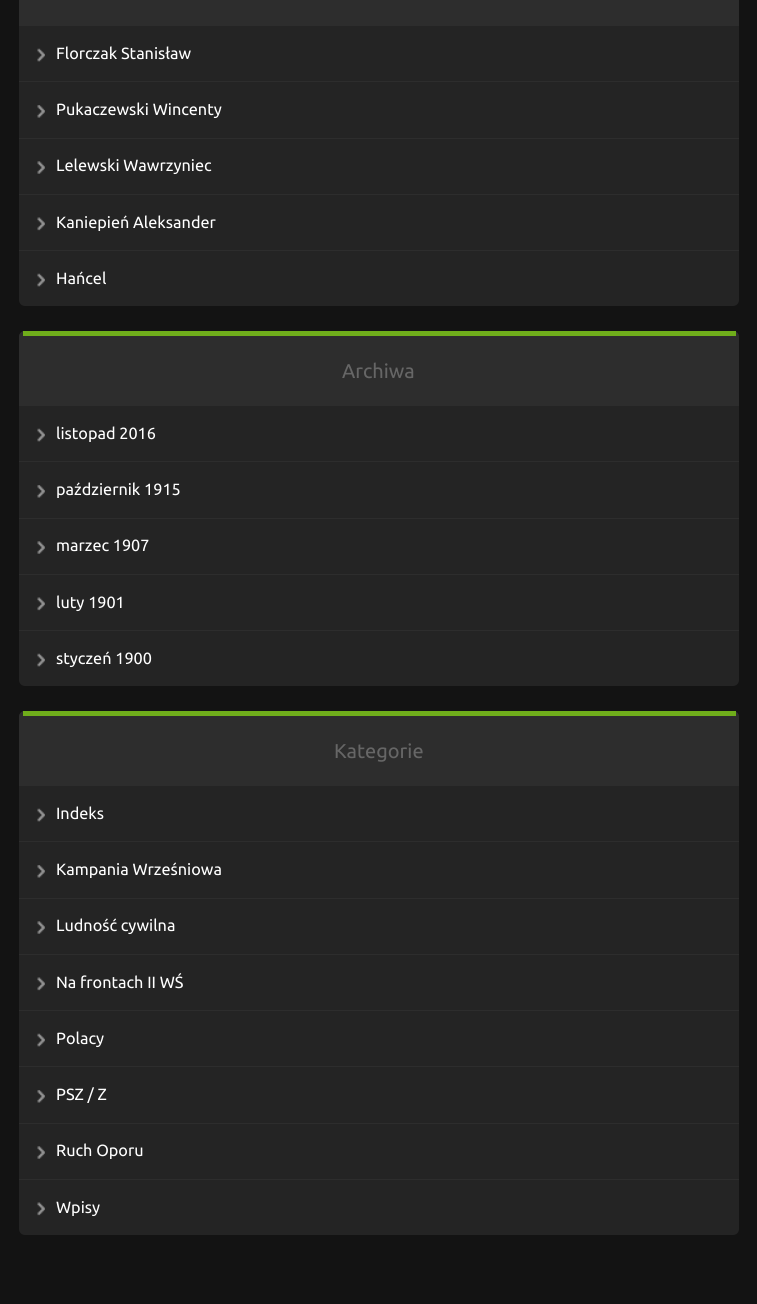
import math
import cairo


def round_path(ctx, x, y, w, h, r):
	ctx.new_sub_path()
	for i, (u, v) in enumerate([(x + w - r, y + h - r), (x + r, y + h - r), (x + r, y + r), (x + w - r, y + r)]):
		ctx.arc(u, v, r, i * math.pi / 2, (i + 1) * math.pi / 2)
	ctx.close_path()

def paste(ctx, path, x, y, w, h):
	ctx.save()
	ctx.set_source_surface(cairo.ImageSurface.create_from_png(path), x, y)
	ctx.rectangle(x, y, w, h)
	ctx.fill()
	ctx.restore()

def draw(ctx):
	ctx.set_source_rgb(0.078, 0.078, 0.078)
	ctx.paint()
	ctx.set_source_rgb(0.141, 0.141, 0.141)
	round_path(ctx, 19, -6, 720, 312, 6)
	ctx.fill()
	ctx.set_source_rgb(0.176, 0.176, 0.176)
	ctx.rectangle(19, 0, 720, 26)
	ctx.fill()
	paste(ctx, 'media/1.png', 37, 48, 8, 14)
	ctx.rectangle(19, 81, 720, 1)
	ctx.fill()
	ctx.select_font_face('Ubuntu')
	ctx.set_font_size(16.25)
	ctx.set_source_rgb(1, 1, 1)
	ctx.move_to(56, 59)
	ctx.show_text('Florczak Stanisław')
	paste(ctx, 'media/2.png', 37, 105, 8, 13)
	ctx.set_source_rgb(0.176, 0.176, 0.176)
	ctx.rectangle(19, 138, 720, 1)
	ctx.fill()
	ctx.set_source_rgb(1, 1, 1)
	ctx.move_to(56, 115)
	ctx.show_text('Pukaczewski Wincenty')
	paste(ctx, 'media/3.png', 37, 161, 8, 13)
	ctx.set_source_rgb(0.176, 0.176, 0.176)
	ctx.rectangle(19, 194, 720, 1)
	ctx.fill()
	ctx.set_source_rgb(1, 1, 1)
	ctx.move_to(56, 171)
	ctx.show_text('Lelewski Wawrzyniec')
	paste(ctx, 'media/4.png', 37, 217, 8, 14)
	ctx.set_source_rgb(0.176, 0.176, 0.176)
	ctx.rectangle(19, 250, 720, 1)
	ctx.fill()
	ctx.set_source_rgb(1, 1, 1)
	ctx.move_to(56, 228)
	ctx.show_text('Kaniepień Aleksander')
	paste(ctx, 'media/1.png', 37, 273, 8, 14)
	ctx.move_to(56, 284)
	ctx.show_text('Hańcel')
	ctx.set_source_rgb(0.141, 0.141, 0.141)
	round_path(ctx, 19, 331, 720, 355, 6)
	ctx.fill()
	ctx.set_source_rgb(0.176, 0.176, 0.176)
	ctx.new_path()
	ctx.move_to(25, 331)
	ctx.line_to(733, 331)
	ctx.curve_to(736.5, 331, 739, 333.5, 739, 337)
	ctx.line_to(739, 406)
	ctx.line_to(19, 406)
	ctx.line_to(19, 337)
	ctx.curve_to(19, 333.5, 21.5, 331, 25, 331)
	ctx.close_path()
	ctx.fill()
	ctx.set_source_rgb(0.435, 0.678, 0.106)
	ctx.rectangle(23, 331, 713, 5)
	ctx.fill()
	ctx.set_font_size(20)
	ctx.set_source_rgb(0.4, 0.4, 0.4)
	ctx.move_to(342, 378)
	ctx.show_text('Archiwa')
	paste(ctx, 'media/1.png', 37, 428, 8, 14)
	ctx.set_source_rgb(0.176, 0.176, 0.176)
	ctx.rectangle(19, 461, 720, 1)
	ctx.fill()
	ctx.set_font_size(16.25)
	ctx.set_source_rgb(1, 1, 1)
	ctx.move_to(56, 439)
	ctx.show_text('listopad 2016')
	paste(ctx, 'media/5.png', 37, 485, 8, 13)
	ctx.set_source_rgb(0.176, 0.176, 0.176)
	ctx.rectangle(19, 518, 720, 1)
	ctx.fill()
	ctx.set_source_rgb(1, 1, 1)
	ctx.move_to(56, 495)
	ctx.show_text('październik 1915')
	paste(ctx, 'media/3.png', 37, 541, 8, 13)
	ctx.set_source_rgb(0.176, 0.176, 0.176)
	ctx.rectangle(19, 574, 720, 1)
	ctx.fill()
	ctx.set_source_rgb(1, 1, 1)
	ctx.move_to(56, 551)
	ctx.show_text('marzec 1907')
	paste(ctx, 'media/4.png', 37, 597, 8, 14)
	ctx.set_source_rgb(0.176, 0.176, 0.176)
	ctx.rectangle(19, 630, 720, 1)
	ctx.fill()
	ctx.set_source_rgb(1, 1, 1)
	ctx.move_to(56, 608)
	ctx.show_text('luty 1901')
	paste(ctx, 'media/1.png', 37, 653, 8, 14)
	ctx.move_to(56, 664)
	ctx.show_text('styczeń 1900')
	ctx.set_source_rgb(0.141, 0.141, 0.141)
	round_path(ctx, 19, 711, 720, 524, 6)
	ctx.fill()
	ctx.set_source_rgb(0.176, 0.176, 0.176)
	ctx.new_path()
	ctx.move_to(25, 711)
	ctx.line_to(733, 711)
	ctx.curve_to(736.5, 711, 739, 713.5, 739, 717)
	ctx.line_to(739, 786)
	ctx.line_to(19, 786)
	ctx.line_to(19, 717)
	ctx.curve_to(19, 713.5, 21.5, 711, 25, 711)
	ctx.close_path()
	ctx.fill()
	ctx.set_source_rgb(0.435, 0.678, 0.106)
	ctx.rectangle(23, 711, 713, 5)
	ctx.fill()
	ctx.set_font_size(20)
	ctx.set_source_rgb(0.4, 0.4, 0.4)
	ctx.move_to(334, 758)
	ctx.show_text('Kategorie')
	paste(ctx, 'media/1.png', 37, 808, 8, 14)
	ctx.set_source_rgb(0.176, 0.176, 0.176)
	ctx.rectangle(19, 841, 720, 1)
	ctx.fill()
	ctx.set_font_size(16.25)
	ctx.set_source_rgb(1, 1, 1)
	ctx.move_to(56, 819)
	ctx.show_text('Indeks')
	paste(ctx, 'media/5.png', 37, 865, 8, 13)
	ctx.set_source_rgb(0.176, 0.176, 0.176)
	ctx.rectangle(19, 898, 720, 1)
	ctx.fill()
	ctx.set_source_rgb(1, 1, 1)
	ctx.move_to(56, 875)
	ctx.show_text('Kampania Wrześniowa')
	paste(ctx, 'media/3.png', 37, 921, 8, 13)
	ctx.set_source_rgb(0.176, 0.176, 0.176)
	ctx.rectangle(19, 954, 720, 1)
	ctx.fill()
	ctx.set_source_rgb(1, 1, 1)
	ctx.move_to(56, 931)
	ctx.show_text('Ludność cywilna')
	paste(ctx, 'media/4.png', 37, 977, 8, 14)
	ctx.set_source_rgb(0.176, 0.176, 0.176)
	ctx.rectangle(19, 1010, 720, 1)
	ctx.fill()
	ctx.set_source_rgb(1, 1, 1)
	ctx.move_to(56, 988)
	ctx.show_text('Na frontach II WŚ')
	paste(ctx, 'media/1.png', 37, 1033, 8, 14)
	ctx.set_source_rgb(0.176, 0.176, 0.176)
	ctx.rectangle(19, 1066, 720, 1)
	ctx.fill()
	ctx.set_source_rgb(1, 1, 1)
	ctx.move_to(56, 1044)
	ctx.show_text('Polacy')
	paste(ctx, 'media/5.png', 37, 1090, 8, 13)
	ctx.set_source_rgb(0.176, 0.176, 0.176)
	ctx.rectangle(19, 1123, 720, 1)
	ctx.fill()
	ctx.set_source_rgb(1, 1, 1)
	ctx.move_to(56, 1100)
	ctx.show_text('PSZ / Z')
	paste(ctx, 'media/3.png', 37, 1146, 8, 13)
	ctx.set_source_rgb(0.176, 0.176, 0.176)
	ctx.rectangle(19, 1179, 720, 1)
	ctx.fill()
	ctx.set_source_rgb(1, 1, 1)
	ctx.move_to(56, 1156)
	ctx.show_text('Ruch Oporu')
	paste(ctx, 'media/4.png', 37, 1202, 8, 14)
	ctx.move_to(56, 1213)
	ctx.show_text('Wpisy')


surface = cairo.ImageSurface(cairo.FORMAT_RGB24, 757, 1304)
ctx = cairo.Context(surface)
options = cairo.FontOptions()
options.set_hint_metrics(cairo.HINT_METRICS_OFF)
options.set_hint_style(cairo.HINT_STYLE_NONE)
ctx.set_font_options(options)
ctx.set_miter_limit(4)
draw(ctx)
surface.write_to_png('image.png')
